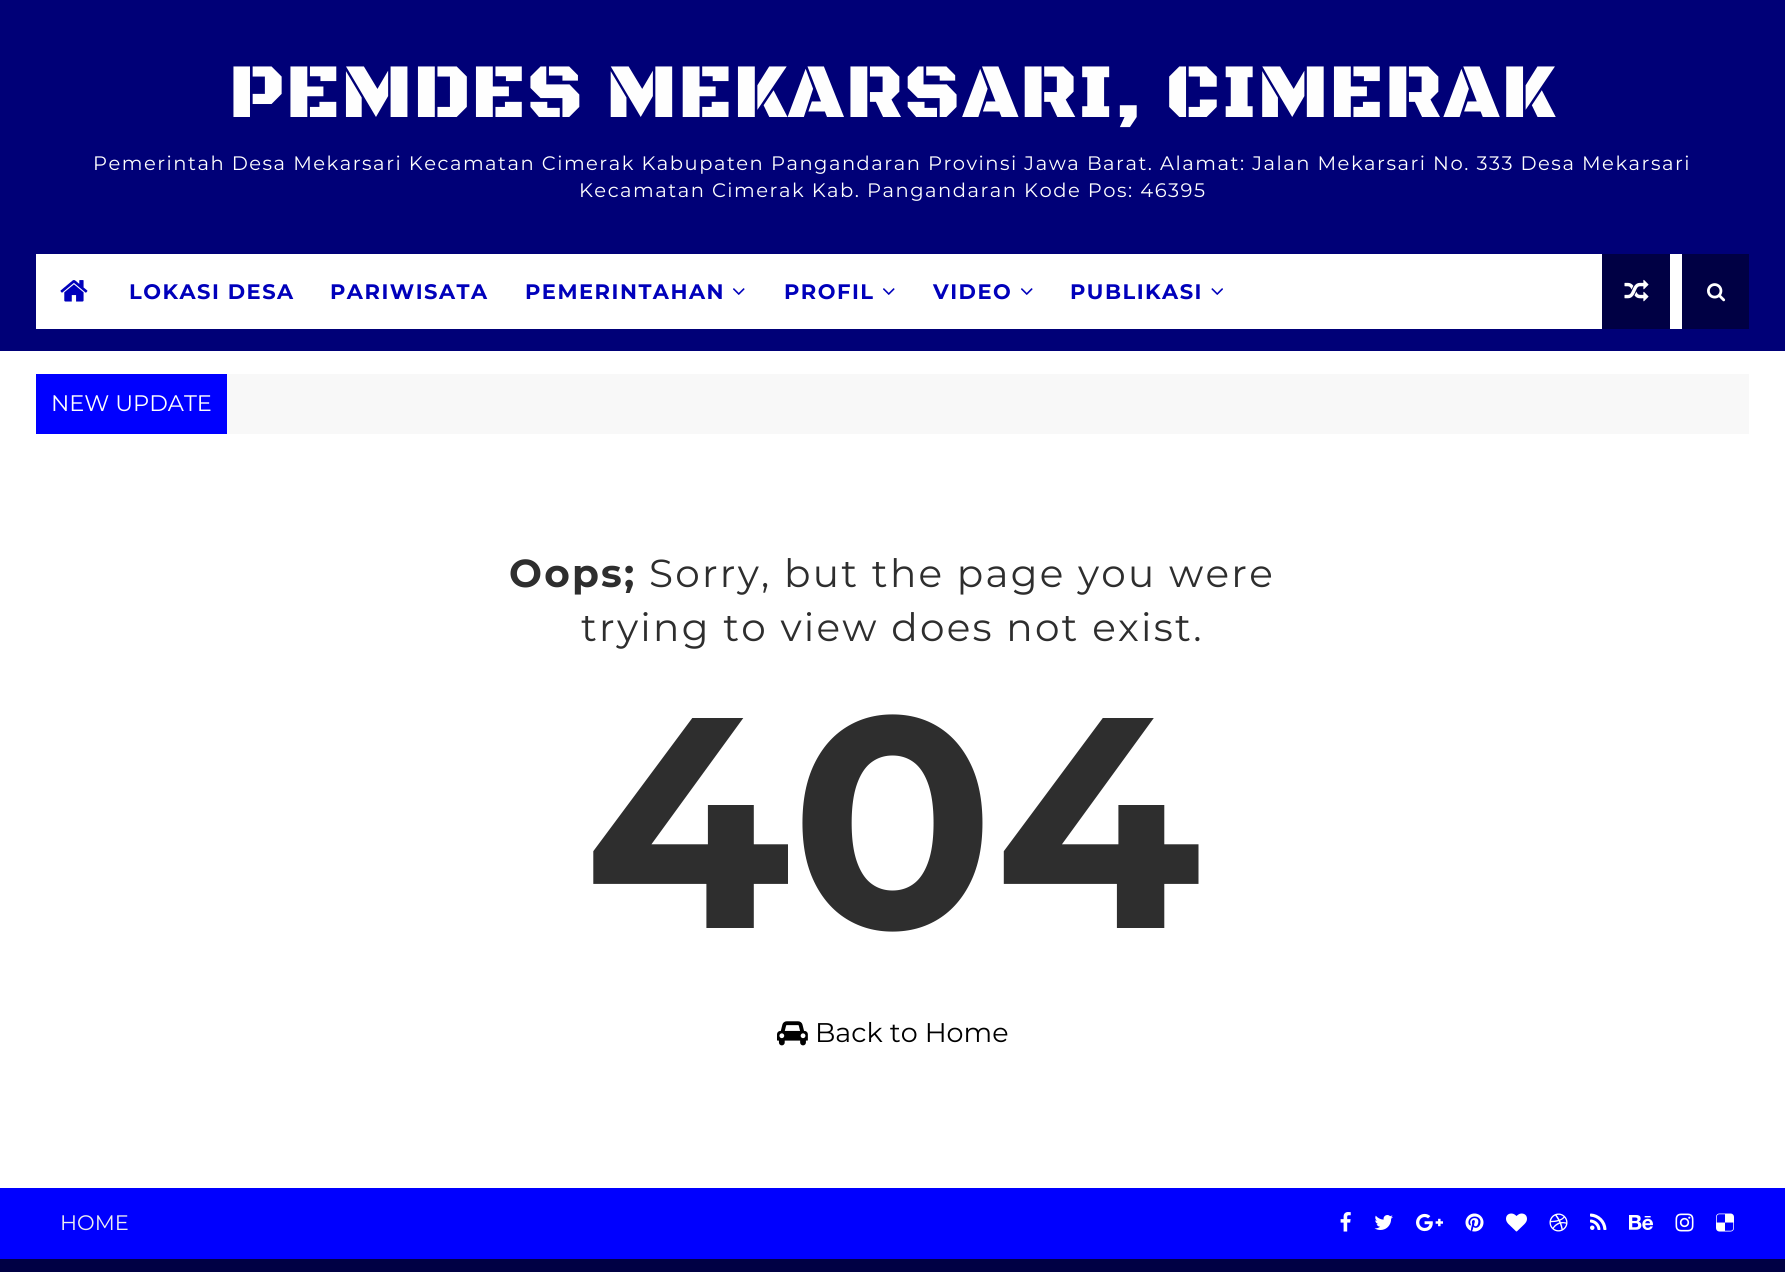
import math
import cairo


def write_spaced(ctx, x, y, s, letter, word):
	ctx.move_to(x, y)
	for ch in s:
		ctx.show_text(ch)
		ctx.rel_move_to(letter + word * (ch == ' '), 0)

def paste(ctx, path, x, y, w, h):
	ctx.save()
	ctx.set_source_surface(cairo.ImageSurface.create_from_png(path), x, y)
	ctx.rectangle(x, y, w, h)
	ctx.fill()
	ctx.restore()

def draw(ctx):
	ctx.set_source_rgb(1, 1, 1)
	ctx.paint()
	ctx.set_source_rgb(0, 0, 0.467)
	ctx.rectangle(0, 0, 1785, 351)
	ctx.fill()
	ctx.select_font_face('Black Ops One Black')
	ctx.set_font_size(78)
	ctx.set_source_rgb(0.996, 0.996, 0.996)
	write_spaced(ctx, 229, 117, 'PEMDES MEKARSARI, CIMERAK', 1.5, 0)
	ctx.select_font_face('Montserrat')
	ctx.set_font_size(19.5)
	write_spaced(ctx, 93, 170, 'Pemerintah Desa Mekarsari Kecamatan Cimerak Kabupaten Pangandaran Provinsi Jawa Barat. Alamat: Jalan Mekarsari No. 333 Desa Mekarsari', 1.5, 0)
	write_spaced(ctx, 579, 197, 'Kecamatan Cimerak Kab. Pangandaran Kode Pos: 46395', 1.5, 0)
	ctx.set_source_rgb(1, 1, 1)
	ctx.rectangle(36, 254, 1646, 75)
	ctx.fill()
	paste(ctx, 'media/1.png', 60, 280, 28, 22)
	ctx.select_font_face('Montserrat', cairo.FONT_SLANT_NORMAL, cairo.FONT_WEIGHT_BOLD)
	ctx.set_font_size(21)
	ctx.set_source_rgb(0, 0, 0.733)
	for x, y, s in [
		(129, 299, 'LOKASI DESA'),
		(330, 299, 'PARIWISATA'),
		(525, 299, 'PEMERINTAHAN'),
	]:
		write_spaced(ctx, x, y, s, 1.5, 0)
	paste(ctx, 'media/2.png', 733, 288, 12, 7)
	write_spaced(ctx, 784, 299, 'PROFIL', 1.5, 0)
	paste(ctx, 'media/2.png', 883, 288, 12, 7)
	write_spaced(ctx, 933, 299, 'VIDEO', 1.5, 0)
	paste(ctx, 'media/2.png', 1021, 288, 12, 7)
	write_spaced(ctx, 1070, 299, 'PUBLIKASI', 1.5, 0)
	paste(ctx, 'media/3.png', 1211, 288, 12, 7)
	ctx.set_source_rgb(0, 0, 0.267)
	ctx.rectangle(1602, 254, 68, 75)
	ctx.fill()
	paste(ctx, 'media/4.png', 1624, 279, 25, 23)
	ctx.rectangle(1682, 254, 67, 75)
	ctx.fill()
	paste(ctx, 'media/5.png', 1707, 283, 19, 19)
	ctx.set_source_rgb(0.969, 0.969, 0.969)
	ctx.rectangle(227, 374, 1522, 60)
	ctx.fill()
	ctx.set_source_rgb(0, 0, 1)
	ctx.rectangle(36, 374, 191, 60)
	ctx.fill()
	ctx.select_font_face('Montserrat')
	ctx.set_font_size(22.5)
	ctx.set_source_rgb(0.996, 0.996, 0.996)
	ctx.move_to(51, 411)
	ctx.show_text('NEW UPDATE')
	ctx.select_font_face('Montserrat', cairo.FONT_SLANT_NORMAL, cairo.FONT_WEIGHT_BOLD)
	ctx.set_font_size(39)
	ctx.set_source_rgb(0.18, 0.18, 0.18)
	write_spaced(ctx, 509, 587, 'Oops;', 2.25, 0)
	ctx.select_font_face('Montserrat')
	write_spaced(ctx, 649, 587, 'Sorry, but the page you were', 2.25, 0)
	write_spaced(ctx, 581, 641, 'trying to view does not exist.', 2.25, 0)
	ctx.select_font_face('Montserrat', cairo.FONT_SLANT_NORMAL, cairo.FONT_WEIGHT_BOLD)
	ctx.set_font_size(300)
	ctx.move_to(584, 928)
	ctx.show_text('404')
	paste(ctx, 'media/6.png', 777, 1021, 31, 25)
	ctx.select_font_face('Montserrat')
	ctx.set_font_size(27)
	ctx.set_source_rgb(0, 0, 0)
	ctx.move_to(815, 1042)
	ctx.show_text('Back to Home')
	ctx.set_source_rgb(0, 0, 0.267)
	ctx.rectangle(0, 1259, 1785, 13)
	ctx.fill()
	ctx.set_source_rgb(0, 0, 1)
	ctx.rectangle(0, 1188, 1785, 71)
	ctx.fill()
	ctx.set_font_size(21)
	ctx.set_source_rgb(0.933, 0.933, 0.933)
	ctx.move_to(60, 1230)
	ctx.show_text('HOME')
	paste(ctx, 'media/7.png', 1340, 1212, 11, 20)
	paste(ctx, 'media/8.png', 1374, 1215, 19, 15)
	paste(ctx, 'media/9.png', 1416, 1213, 27, 19)
	paste(ctx, 'media/10.png', 1465, 1213, 19, 19)
	paste(ctx, 'media/11.png', 1506, 1213, 21, 19)
	paste(ctx, 'media/12.png', 1549, 1213, 19, 19)
	paste(ctx, 'media/13.png', 1590, 1213, 17, 17)
	paste(ctx, 'media/14.png', 1629, 1215, 24, 15)
	paste(ctx, 'media/15.png', 1675, 1213, 19, 19)
	paste(ctx, 'media/16.png', 1716, 1213, 18, 19)


surface = cairo.ImageSurface(cairo.FORMAT_RGB24, 1785, 1272)
ctx = cairo.Context(surface)
options = cairo.FontOptions()
options.set_hint_metrics(cairo.HINT_METRICS_OFF)
options.set_hint_style(cairo.HINT_STYLE_NONE)
ctx.set_font_options(options)
ctx.set_miter_limit(4)
draw(ctx)
surface.write_to_png('image.png')
